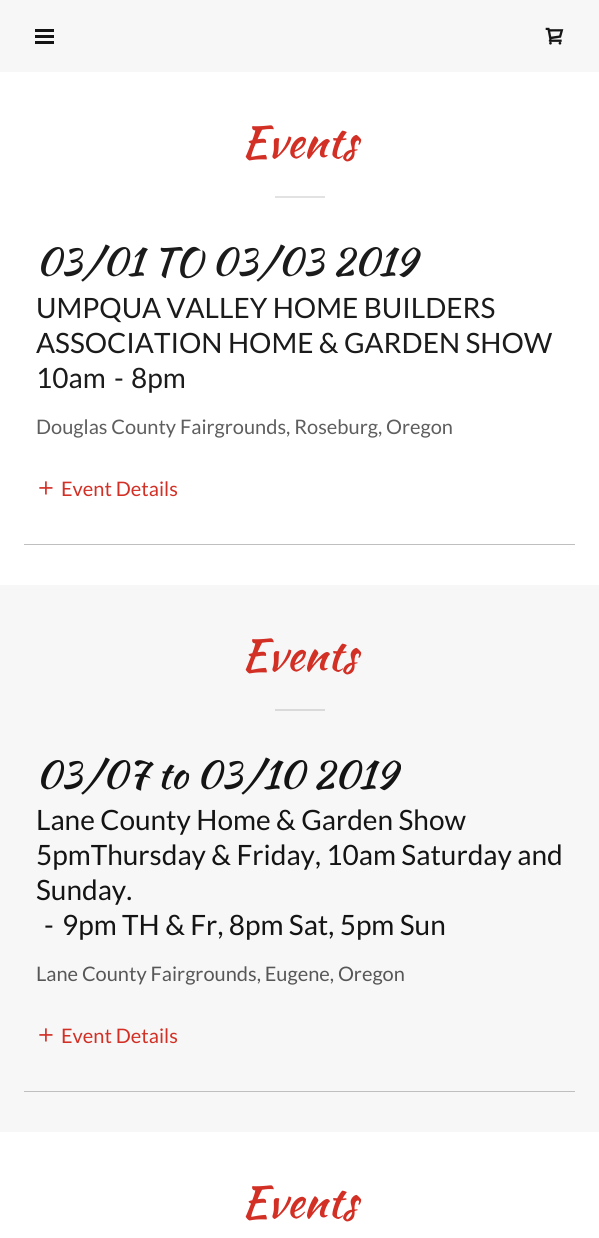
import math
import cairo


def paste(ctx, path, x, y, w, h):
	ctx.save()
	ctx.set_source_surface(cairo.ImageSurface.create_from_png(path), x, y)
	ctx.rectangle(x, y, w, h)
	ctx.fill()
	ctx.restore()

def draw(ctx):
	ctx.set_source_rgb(0.965, 0.965, 0.965)
	ctx.paint()
	ctx.set_source_rgb(0.082, 0.082, 0.082)
	ctx.rectangle(35, 29, 19, 3)
	ctx.rectangle(35, 35, 19, 3)
	ctx.rectangle(35, 41, 19, 3)
	ctx.fill()
	paste(ctx, 'media/1.png', 545, 27, 19, 18)
	ctx.set_source_rgb(1, 1, 1)
	ctx.rectangle(0, 72, 599, 513)
	ctx.fill()
	ctx.select_font_face('Kaushan Script')
	ctx.set_font_size(43)
	ctx.set_source_rgb(0.824, 0.184, 0.145)
	ctx.move_to(241, 157)
	ctx.show_text('Events')
	ctx.set_source_rgb(0.886, 0.886, 0.886)
	ctx.rectangle(275, 196, 50, 2)
	ctx.fill()
	ctx.set_source_rgb(0.749, 0.749, 0.749)
	ctx.rectangle(24, 544, 551, 1)
	ctx.fill()
	ctx.set_font_size(38)
	ctx.set_source_rgb(0.106, 0.106, 0.106)
	ctx.move_to(36, 275)
	ctx.show_text('03/01 TO 03/03 2019')
	ctx.select_font_face('Lato')
	ctx.set_font_size(28)
	for x, y, s in [
		(36, 318, 'UMPQUA VALLEY HOME BUILDERS'),
		(36, 353, 'ASSOCIATION HOME & GARDEN SHOW'),
		(36, 388, '10am'),
		(114, 388, '-'),
		(131, 388, '8pm'),
	]:
		ctx.move_to(x, y)
		ctx.show_text(s)
	ctx.set_font_size(20)
	ctx.set_source_rgb(0.369, 0.369, 0.369)
	ctx.move_to(36, 434)
	ctx.show_text('Douglas County Fairgrounds, Roseburg, Oregon')
	paste(ctx, 'media/2.png', 39, 481, 14, 14)
	ctx.set_source_rgb(0.824, 0.184, 0.145)
	ctx.move_to(61, 496)
	ctx.show_text('Event Details')
	ctx.select_font_face('Kaushan Script')
	ctx.set_font_size(43)
	ctx.move_to(241, 670)
	ctx.show_text('Events')
	ctx.set_source_rgb(0.855, 0.855, 0.855)
	ctx.rectangle(275, 709, 50, 2)
	ctx.fill()
	ctx.set_source_rgb(0.749, 0.749, 0.749)
	ctx.rectangle(24, 1091, 551, 1)
	ctx.fill()
	ctx.set_font_size(38)
	ctx.set_source_rgb(0.082, 0.082, 0.082)
	ctx.move_to(36, 788)
	ctx.show_text('03/07 to 03/10 2019')
	ctx.select_font_face('Lato')
	ctx.set_font_size(28)
	for x, y, s in [
		(36, 830, 'Lane County Home & Garden Show'),
		(36, 865, '5pmThursday & Friday, 10am Saturday and'),
		(36, 900, 'Sunday.'),
		(44, 935, '-'),
		(62, 935, '9pm TH & Fr, 8pm Sat, 5pm Sun'),
	]:
		ctx.move_to(x, y)
		ctx.show_text(s)
	ctx.set_font_size(20)
	ctx.set_source_rgb(0.341, 0.341, 0.341)
	ctx.move_to(36, 981)
	ctx.show_text('Lane County Fairgrounds, Eugene, Oregon')
	paste(ctx, 'media/3.png', 39, 1028, 14, 14)
	ctx.set_source_rgb(0.824, 0.184, 0.145)
	ctx.move_to(61, 1043)
	ctx.show_text('Event Details')
	ctx.set_source_rgb(1, 1, 1)
	ctx.rectangle(0, 1132, 599, 106)
	ctx.fill()
	ctx.select_font_face('Kaushan Script')
	ctx.set_font_size(43)
	ctx.set_source_rgb(0.824, 0.184, 0.145)
	ctx.move_to(241, 1217)
	ctx.show_text('Events')


surface = cairo.ImageSurface(cairo.FORMAT_RGB24, 599, 1238)
ctx = cairo.Context(surface)
options = cairo.FontOptions()
options.set_hint_metrics(cairo.HINT_METRICS_OFF)
options.set_hint_style(cairo.HINT_STYLE_NONE)
ctx.set_font_options(options)
ctx.set_miter_limit(4)
draw(ctx)
surface.write_to_png('image.png')
